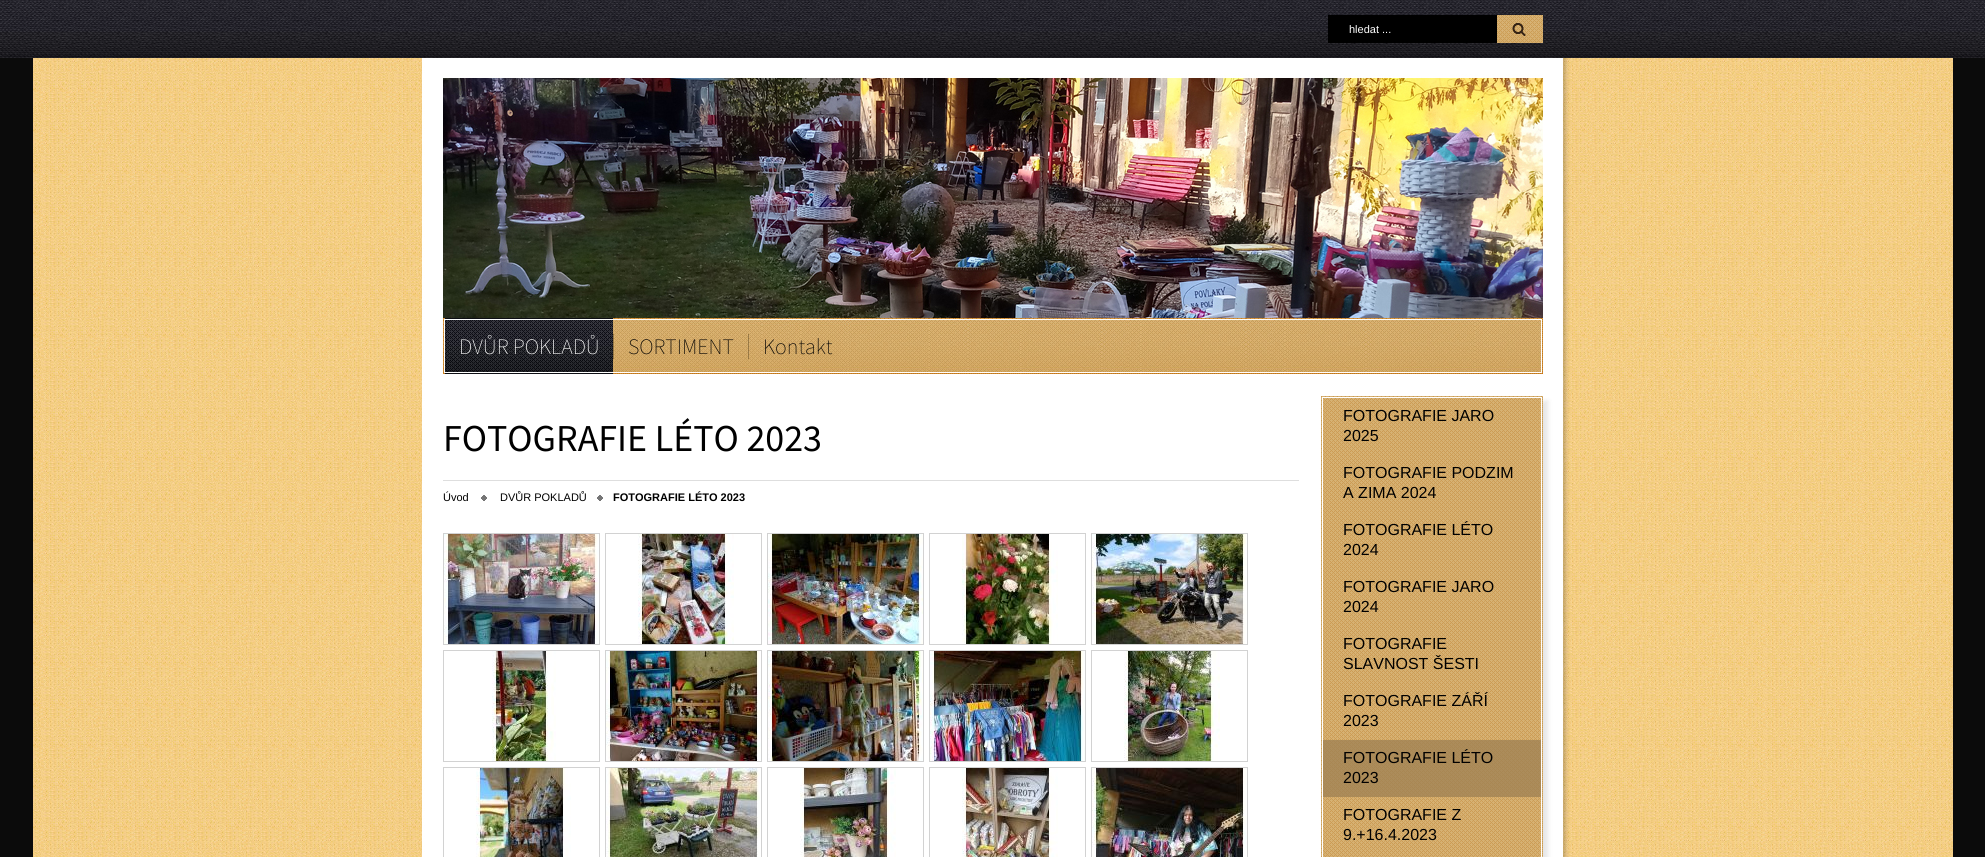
import math
import cairo


def round_path(ctx, x, y, w, h, r):
	ctx.new_sub_path()
	for i, (u, v) in enumerate([(x + w - r, y + h - r), (x + r, y + h - r), (x + r, y + r), (x + w - r, y + r)]):
		ctx.arc(u, v, r, i * math.pi / 2, (i + 1) * math.pi / 2)
	ctx.close_path()

def blur_box(ctx, x, y, w, h, r, blur, alpha):
	ctx.push_group_with_content(cairo.CONTENT_ALPHA)
	ctx.set_operator(cairo.OPERATOR_SOURCE)
	for i in range(15, -16, -2):
		e = blur * i / 6
		if min(w, h) + 2 * e > 0:
			ctx.set_source_rgba(0, 0, 0, alpha * math.erfc((i - 1) / 8.5) / 2)
			round_path(ctx, x - e, y - e, w + 2 * e, h + 2 * e, max(0, min(r + e + blur * .6, min(w, h) / 2 + e)))
			ctx.fill()
	ctx.mask(ctx.pop_group())

def paste(ctx, path, x, y, w, h):
	ctx.save()
	ctx.set_source_surface(cairo.ImageSurface.create_from_png(path), x, y)
	ctx.rectangle(x, y, w, h)
	ctx.fill()
	ctx.restore()

def draw(ctx):
	ctx.set_source_rgb(0.043, 0.043, 0.043)
	ctx.paint()
	paste(ctx, 'media/1.png', 33, 58, 1920, 799)
	paste(ctx, 'media/2.png', 0, 0, 1985, 58)
	ctx.set_source_rgb(0, 0, 0)
	ctx.rectangle(1328, 15, 169, 28)
	ctx.fill()
	ctx.select_font_face('Liberation Sans')
	ctx.set_font_size(11)
	ctx.set_source_rgb(1, 1, 1)
	ctx.move_to(1349, 33)
	ctx.show_text('hledat ...')
	paste(ctx, 'media/3.png', 1497, 15, 46, 28)
	paste(ctx, 'media/4.png', 443, 58, 1100, 260)
	paste(ctx, 'media/5.png', 443, 318, 1100, 56)
	paste(ctx, 'media/6.png', 445, 318, 168, 56)
	ctx.select_font_face('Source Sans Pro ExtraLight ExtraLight')
	ctx.set_font_size(22)
	ctx.move_to(459, 354)
	ctx.show_text('DVŮR POKLADŮ')
	paste(ctx, 'media/7.png', 613, 334, 1, 25)
	ctx.set_source_rgb(0, 0, 0)
	ctx.move_to(628, 354)
	ctx.show_text('SORTIMENT')
	paste(ctx, 'media/7.png', 748, 334, 1, 25)
	ctx.move_to(763, 354)
	ctx.show_text('Kontakt')
	ctx.set_source_rgb(0.871, 0.871, 0.871)
	ctx.rectangle(443, 480, 856, 1)
	ctx.fill()
	ctx.select_font_face('Source Sans Pro')
	ctx.set_font_size(38)
	ctx.set_source_rgb(0, 0, 0)
	ctx.move_to(443, 451)
	ctx.show_text('FOTOGRAFIE LÉTO 2023')
	ctx.select_font_face('Liberation Sans')
	ctx.set_font_size(11)
	ctx.move_to(443, 501)
	ctx.show_text('Úvod')
	paste(ctx, 'media/8.png', 481, 495, 6, 6)
	ctx.move_to(500, 501)
	ctx.show_text('DVŮR POKLADŮ')
	paste(ctx, 'media/8.png', 597, 495, 6, 6)
	ctx.select_font_face('Liberation Sans', cairo.FONT_SLANT_NORMAL, cairo.FONT_WEIGHT_BOLD)
	ctx.move_to(613, 501)
	ctx.show_text('FOTOGRAFIE LÉTO 2023')
	ctx.rectangle(443.5, 533.5, 156, 111)
	ctx.set_source_rgb(0.824, 0.824, 0.824)
	ctx.set_line_width(1)
	ctx.stroke()
	paste(ctx, 'media/9.png', 444, 534, 155, 110)
	ctx.rectangle(605.5, 533.5, 156, 111)
	ctx.stroke()
	paste(ctx, 'media/10.png', 638, 534, 96, 110)
	ctx.rectangle(767.5, 533.5, 156, 111)
	ctx.stroke()
	paste(ctx, 'media/11.png', 768, 534, 155, 110)
	ctx.rectangle(929.5, 533.5, 156, 111)
	ctx.stroke()
	paste(ctx, 'media/12.png', 962, 534, 96, 110)
	ctx.rectangle(1091.5, 533.5, 156, 111)
	ctx.stroke()
	paste(ctx, 'media/13.png', 1092, 534, 155, 110)
	ctx.rectangle(443.5, 650.5, 156, 111)
	ctx.stroke()
	paste(ctx, 'media/14.png', 492, 651, 64, 110)
	ctx.rectangle(605.5, 650.5, 156, 111)
	ctx.stroke()
	paste(ctx, 'media/15.png', 606, 651, 155, 110)
	ctx.rectangle(767.5, 650.5, 156, 111)
	ctx.stroke()
	paste(ctx, 'media/16.png', 768, 651, 155, 110)
	ctx.rectangle(929.5, 650.5, 156, 111)
	ctx.stroke()
	paste(ctx, 'media/17.png', 930, 651, 155, 110)
	ctx.rectangle(1091.5, 650.5, 156, 111)
	ctx.stroke()
	paste(ctx, 'media/18.png', 1124, 651, 96, 110)
	ctx.rectangle(443.5, 767.5, 156, 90)
	ctx.stroke()
	paste(ctx, 'media/19.png', 476, 768, 95, 89)
	ctx.rectangle(605.5, 767.5, 156, 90)
	ctx.stroke()
	paste(ctx, 'media/20.png', 606, 768, 154, 89)
	ctx.rectangle(767.5, 767.5, 156, 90)
	ctx.stroke()
	paste(ctx, 'media/21.png', 800, 768, 96, 89)
	ctx.rectangle(929.5, 767.5, 156, 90)
	ctx.stroke()
	paste(ctx, 'media/22.png', 962, 768, 96, 89)
	ctx.rectangle(1091.5, 767.5, 156, 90)
	ctx.stroke()
	paste(ctx, 'media/23.png', 1092, 768, 155, 89)
	ctx.set_source_rgb(0.004, 0.008, 0.008)
	blur_box(ctx, 1326, 401, 222, 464, 0, 2.5, 0.1)
	paste(ctx, 'media/24.png', 1321, 396, 222, 461)
	ctx.rectangle(1322.5, 397.5, 219, 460)
	ctx.set_source_rgb(1, 1, 1)
	ctx.stroke()
	ctx.select_font_face('Liberation Sans')
	ctx.set_font_size(16)
	ctx.set_source_rgb(0, 0, 0)
	for x, y, s in [
		(1343, 421, 'FOTOGRAFIE JARO'),
		(1343, 441, '2025'),
		(1343, 478, 'FOTOGRAFIE PODZIM'),
		(1343, 498, 'A ZIMA 2024'),
		(1343, 535, 'FOTOGRAFIE LÉTO'),
		(1343, 555, '2024'),
		(1343, 592, 'FOTOGRAFIE JARO'),
		(1343, 612, '2024'),
		(1343, 649, 'FOTOGRAFIE'),
		(1343, 669, 'SLAVNOST ŠESTI'),
		(1343, 706, 'FOTOGRAFIE ZÁŘÍ'),
		(1343, 726, '2023'),
	]:
		ctx.move_to(x, y)
		ctx.show_text(s)
	ctx.set_source_rgba(0.616, 0.502, 0.325, 0.75)
	ctx.rectangle(1323, 740, 218, 57)
	ctx.fill()
	ctx.set_source_rgb(0, 0, 0)
	for x, y, s in [
		(1343, 763, 'FOTOGRAFIE LÉTO'),
		(1343, 783, '2023'),
		(1343, 820, 'FOTOGRAFIE Z'),
		(1343, 840, '9.+16.4.2023'),
	]:
		ctx.move_to(x, y)
		ctx.show_text(s)


surface = cairo.ImageSurface(cairo.FORMAT_RGB24, 1985, 857)
ctx = cairo.Context(surface)
options = cairo.FontOptions()
options.set_hint_metrics(cairo.HINT_METRICS_OFF)
options.set_hint_style(cairo.HINT_STYLE_NONE)
ctx.set_font_options(options)
ctx.set_miter_limit(4)
draw(ctx)
surface.write_to_png('image.png')
